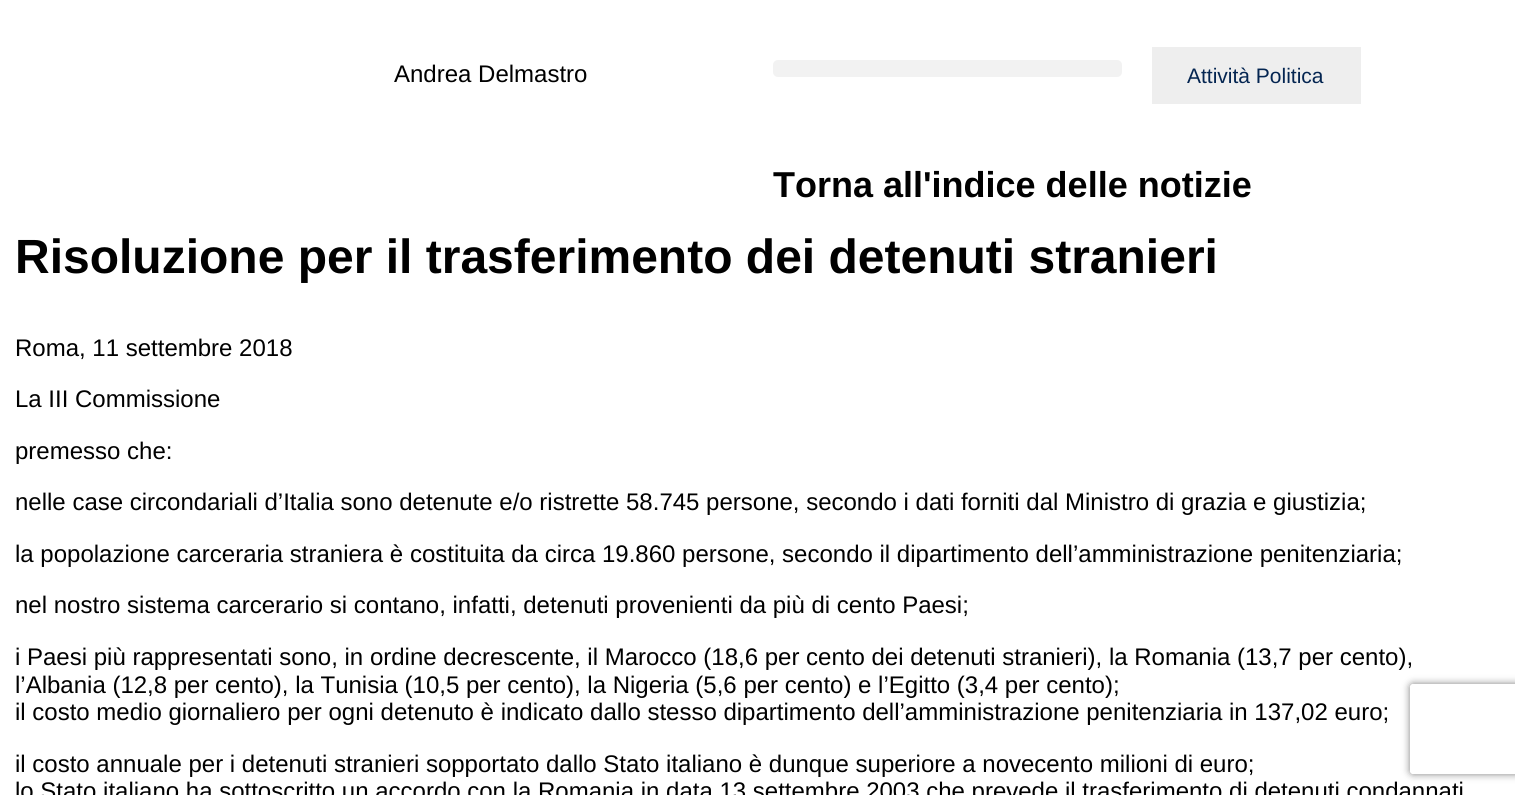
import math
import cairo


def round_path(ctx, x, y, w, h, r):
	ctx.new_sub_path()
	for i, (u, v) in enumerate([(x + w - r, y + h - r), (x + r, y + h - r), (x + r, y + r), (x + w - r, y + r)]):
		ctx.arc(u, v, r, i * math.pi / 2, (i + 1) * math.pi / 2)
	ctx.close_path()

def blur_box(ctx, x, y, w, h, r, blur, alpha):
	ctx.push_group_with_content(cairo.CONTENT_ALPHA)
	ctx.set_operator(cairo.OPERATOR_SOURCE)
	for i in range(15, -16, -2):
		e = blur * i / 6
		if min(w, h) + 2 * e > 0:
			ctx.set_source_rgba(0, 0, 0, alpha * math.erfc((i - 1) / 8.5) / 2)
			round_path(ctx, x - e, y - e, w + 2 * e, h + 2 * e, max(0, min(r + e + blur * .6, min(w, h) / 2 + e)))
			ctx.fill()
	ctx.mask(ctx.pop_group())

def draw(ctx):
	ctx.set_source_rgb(1, 1, 1)
	ctx.paint()
	ctx.select_font_face('Liberation Sans')
	ctx.set_font_size(24)
	ctx.set_source_rgb(0, 0, 0)
	ctx.move_to(394, 82)
	ctx.show_text('Andrea Delmastro')
	ctx.set_source_rgb(0.949, 0.949, 0.949)
	round_path(ctx, 773, 60, 349, 17, 5)
	ctx.fill()
	ctx.set_source_rgb(0.933, 0.933, 0.933)
	ctx.rectangle(1152, 47, 209, 57)
	ctx.fill()
	ctx.set_font_size(21)
	ctx.set_source_rgb(0.016, 0.145, 0.318)
	ctx.move_to(1187, 83)
	ctx.show_text('Attività Politica')
	ctx.select_font_face('Liberation Sans', cairo.FONT_SLANT_NORMAL, cairo.FONT_WEIGHT_BOLD)
	ctx.set_font_size(36)
	ctx.set_source_rgb(0, 0, 0)
	ctx.move_to(773, 197)
	ctx.show_text('Torna all\'indice delle notizie')
	ctx.set_font_size(48)
	ctx.move_to(15, 273)
	ctx.show_text('Risoluzione per il trasferimento dei detenuti stranieri')
	ctx.select_font_face('Liberation Sans')
	ctx.set_font_size(24)
	for x, y, s in [
		(15, 356, 'Roma, 11 settembre 2018'),
		(15, 407, 'La III Commissione'),
		(15, 459, 'premesso che:'),
		(15, 510, 'nelle case circondariali d’Italia sono detenute e/o ristrette 58.745 persone, secondo i dati forniti dal Ministro di grazia e giustizia;'),
		(15, 562, 'la popolazione carceraria straniera è costituita da circa 19.860 persone, secondo il dipartimento dell’amministrazione penitenziaria;'),
		(15, 613, 'nel nostro sistema carcerario si contano, infatti, detenuti provenienti da più di cento Paesi;'),
		(15, 665, 'i Paesi più rappresentati sono, in ordine decrescente, il Marocco (18,6 per cento dei detenuti stranieri), la Romania (13,7 per cento),'),
		(15, 693, 'l’Albania (12,8 per cento), la Tunisia (10,5 per cento), la Nigeria (5,6 per cento) e l’Egitto (3,4 per cento);'),
		(15, 720, 'il costo medio giornaliero per ogni detenuto è indicato dallo stesso dipartimento dell’amministrazione penitenziaria in 137,02 euro;'),
		(15, 772, 'il costo annuale per i detenuti stranieri sopportato dallo Stato italiano è dunque superiore a novecento milioni di euro;'),
		(15, 799, 'lo Stato italiano ha sottoscritto un accordo con la Romania in data 13 settembre 2003 che prevede il trasferimento di detenuti condannati'),
	]:
		ctx.move_to(x, y)
		ctx.show_text(s)
	ctx.save()
	ctx.set_fill_rule(cairo.FILL_RULE_EVEN_ODD)
	ctx.new_path()
	ctx.move_to(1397, 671)
	ctx.line_to(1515, 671)
	ctx.line_to(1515, 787)
	ctx.line_to(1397, 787)
	ctx.close_path()
	ctx.move_to(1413, 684)
	ctx.line_to(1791, 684)
	ctx.curve_to(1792.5, 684, 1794, 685.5, 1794, 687)
	ctx.line_to(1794, 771)
	ctx.curve_to(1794, 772.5, 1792.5, 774, 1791, 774)
	ctx.line_to(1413, 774)
	ctx.curve_to(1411.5, 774, 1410, 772.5, 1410, 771)
	ctx.line_to(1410, 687)
	ctx.curve_to(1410, 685.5, 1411.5, 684, 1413, 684)
	ctx.close_path()
	ctx.clip()
	ctx.set_source_rgb(0.502, 0.502, 0.502)
	blur_box(ctx, 1410, 684, 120, 90, 3, 4, 1)
	ctx.restore()


surface = cairo.ImageSurface(cairo.FORMAT_RGB24, 1515, 795)
ctx = cairo.Context(surface)
options = cairo.FontOptions()
options.set_hint_metrics(cairo.HINT_METRICS_OFF)
options.set_hint_style(cairo.HINT_STYLE_NONE)
ctx.set_font_options(options)
ctx.set_miter_limit(4)
draw(ctx)
surface.write_to_png('image.png')
